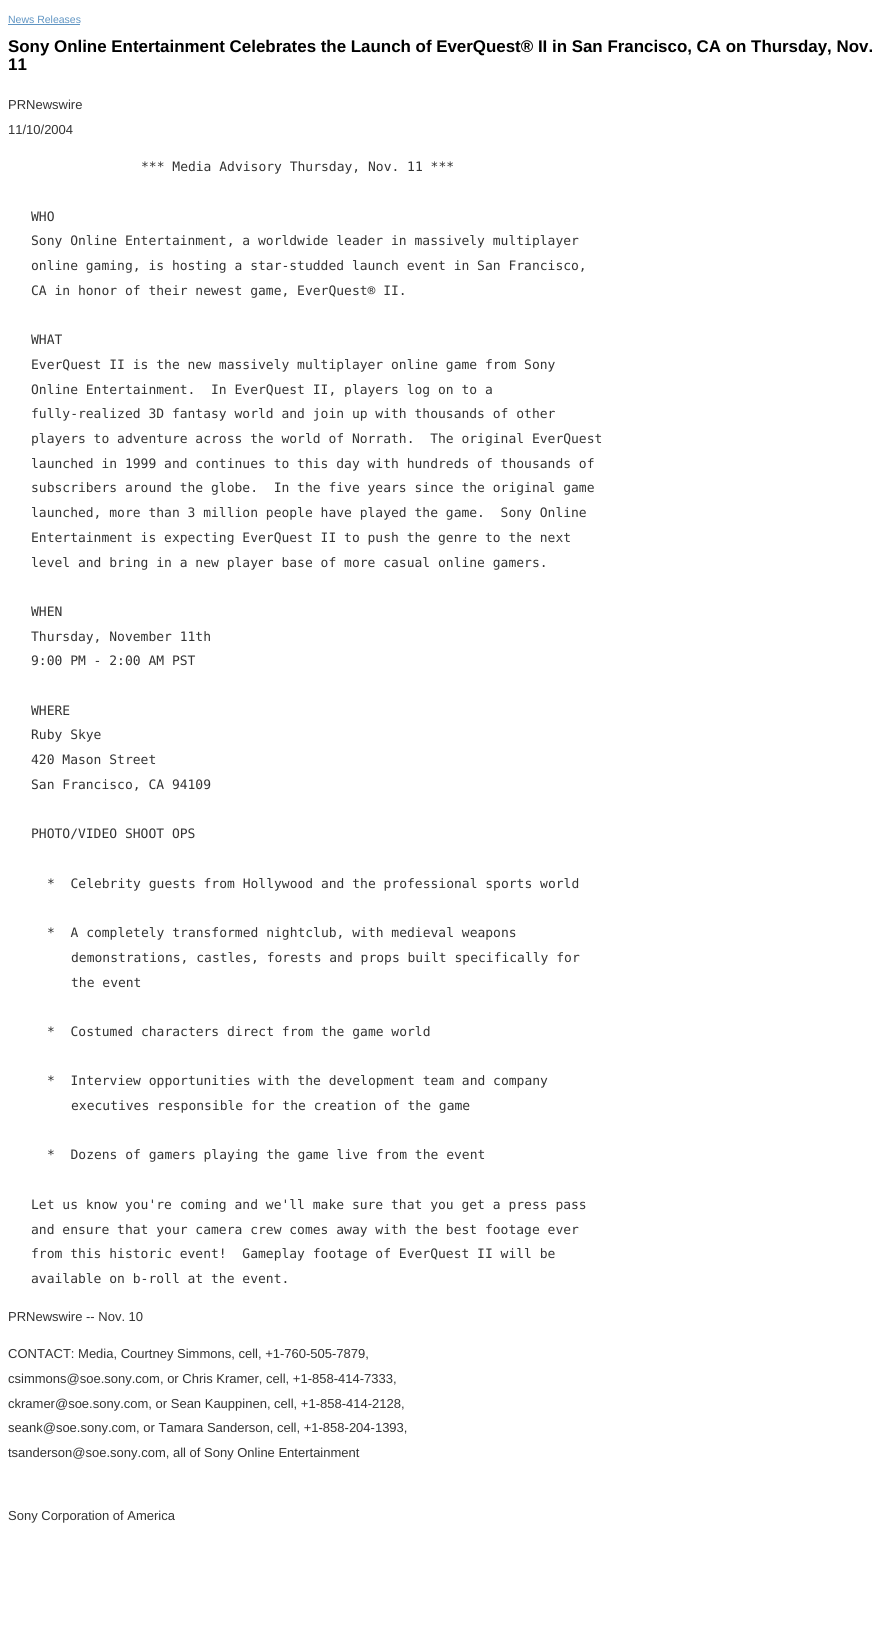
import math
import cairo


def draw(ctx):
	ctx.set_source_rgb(1, 1, 1)
	ctx.paint()
	ctx.select_font_face('Liberation Sans')
	ctx.set_font_size(10.5)
	ctx.set_source_rgb(0.376, 0.584, 0.765)
	ctx.move_to(8, 23)
	ctx.show_text('News Releases')
	ctx.rectangle(8, 24, 72, 1)
	ctx.fill()
	ctx.select_font_face('Liberation Sans', cairo.FONT_SLANT_NORMAL, cairo.FONT_WEIGHT_BOLD)
	ctx.set_font_size(16.9)
	ctx.set_source_rgb(0, 0, 0)
	ctx.move_to(8, 52)
	ctx.show_text('Sony Online Entertainment Celebrates the Launch of EverQuest® II in San Francisco, CA on Thursday, Nov.')
	ctx.move_to(8, 70)
	ctx.show_text('11')
	ctx.select_font_face('Liberation Sans')
	ctx.set_font_size(13)
	ctx.set_source_rgb(0.2, 0.2, 0.2)
	ctx.move_to(8, 109)
	ctx.show_text('PRNewswire')
	ctx.move_to(8, 134)
	ctx.show_text('11/10/2004')
	ctx.select_font_face('DejaVu Sans Mono')
	for x, y, s in [
		(141, 171, '*** Media Advisory Thursday, Nov. 11 ***'),
		(31, 221, 'WHO'),
		(31, 245, 'Sony Online Entertainment, a worldwide leader in massively multiplayer'),
		(31, 270, 'online gaming, is hosting a star-studded launch event in San Francisco,'),
		(31, 295, 'CA in honor of their newest game, EverQuest® II.'),
		(31, 344, 'WHAT'),
		(31, 369, 'EverQuest II is the new massively multiplayer online game from Sony'),
		(31, 394, 'Online Entertainment.  In EverQuest II, players log on to a'),
		(31, 418, 'fully-realized 3D fantasy world and join up with thousands of other'),
		(31, 443, 'players to adventure across the world of Norrath.  The original EverQuest'),
		(31, 468, 'launched in 1999 and continues to this day with hundreds of thousands of'),
		(31, 492, 'subscribers around the globe.  In the five years since the original game'),
		(31, 517, 'launched, more than 3 million people have played the game.  Sony Online'),
		(31, 542, 'Entertainment is expecting EverQuest II to push the genre to the next'),
		(31, 567, 'level and bring in a new player base of more casual online gamers.'),
		(31, 616, 'WHEN'),
		(31, 641, 'Thursday, November 11th'),
		(31, 665, '9:00 PM - 2:00 AM PST'),
		(31, 715, 'WHERE'),
		(31, 739, 'Ruby Skye'),
		(31, 764, '420 Mason Street'),
		(31, 789, 'San Francisco, CA 94109'),
		(31, 838, 'PHOTO/VIDEO SHOOT OPS'),
		(47, 888, '*  Celebrity guests from Hollywood and the professional sports world'),
		(47, 937, '*  A completely transformed nightclub, with medieval weapons'),
		(71, 962, 'demonstrations, castles, forests and props built specifically for'),
		(71, 987, 'the event'),
		(47, 1036, '*  Costumed characters direct from the game world'),
		(47, 1085, '*  Interview opportunities with the development team and company'),
		(71, 1110, 'executives responsible for the creation of the game'),
		(47, 1159, '*  Dozens of gamers playing the game live from the event'),
		(31, 1209, 'Let us know you\'re coming and we\'ll make sure that you get a press pass'),
		(31, 1234, 'and ensure that your camera crew comes away with the best footage ever'),
		(31, 1258, 'from this historic event!  Gameplay footage of EverQuest II will be'),
		(31, 1283, 'available on b-roll at the event.'),
	]:
		ctx.move_to(x, y)
		ctx.show_text(s)
	ctx.select_font_face('Liberation Sans')
	for x, y, s in [
		(8, 1321, 'PRNewswire -- Nov. 10'),
		(8, 1358, 'CONTACT: Media, Courtney Simmons, cell, +1-760-505-7879,'),
		(8, 1383, 'csimmons@soe.sony.com, or Chris Kramer, cell, +1-858-414-7333,'),
		(8, 1408, 'ckramer@soe.sony.com, or Sean Kauppinen, cell, +1-858-414-2128,'),
		(8, 1432, 'seank@soe.sony.com, or Tamara Sanderson, cell, +1-858-204-1393,'),
		(8, 1457, 'tsanderson@soe.sony.com, all of Sony Online Entertainment'),
		(8, 1520, 'Sony Corporation of America'),
	]:
		ctx.move_to(x, y)
		ctx.show_text(s)


surface = cairo.ImageSurface(cairo.FORMAT_RGB24, 887, 1641)
ctx = cairo.Context(surface)
options = cairo.FontOptions()
options.set_hint_metrics(cairo.HINT_METRICS_OFF)
options.set_hint_style(cairo.HINT_STYLE_NONE)
ctx.set_font_options(options)
ctx.set_miter_limit(4)
draw(ctx)
surface.write_to_png('image.png')
